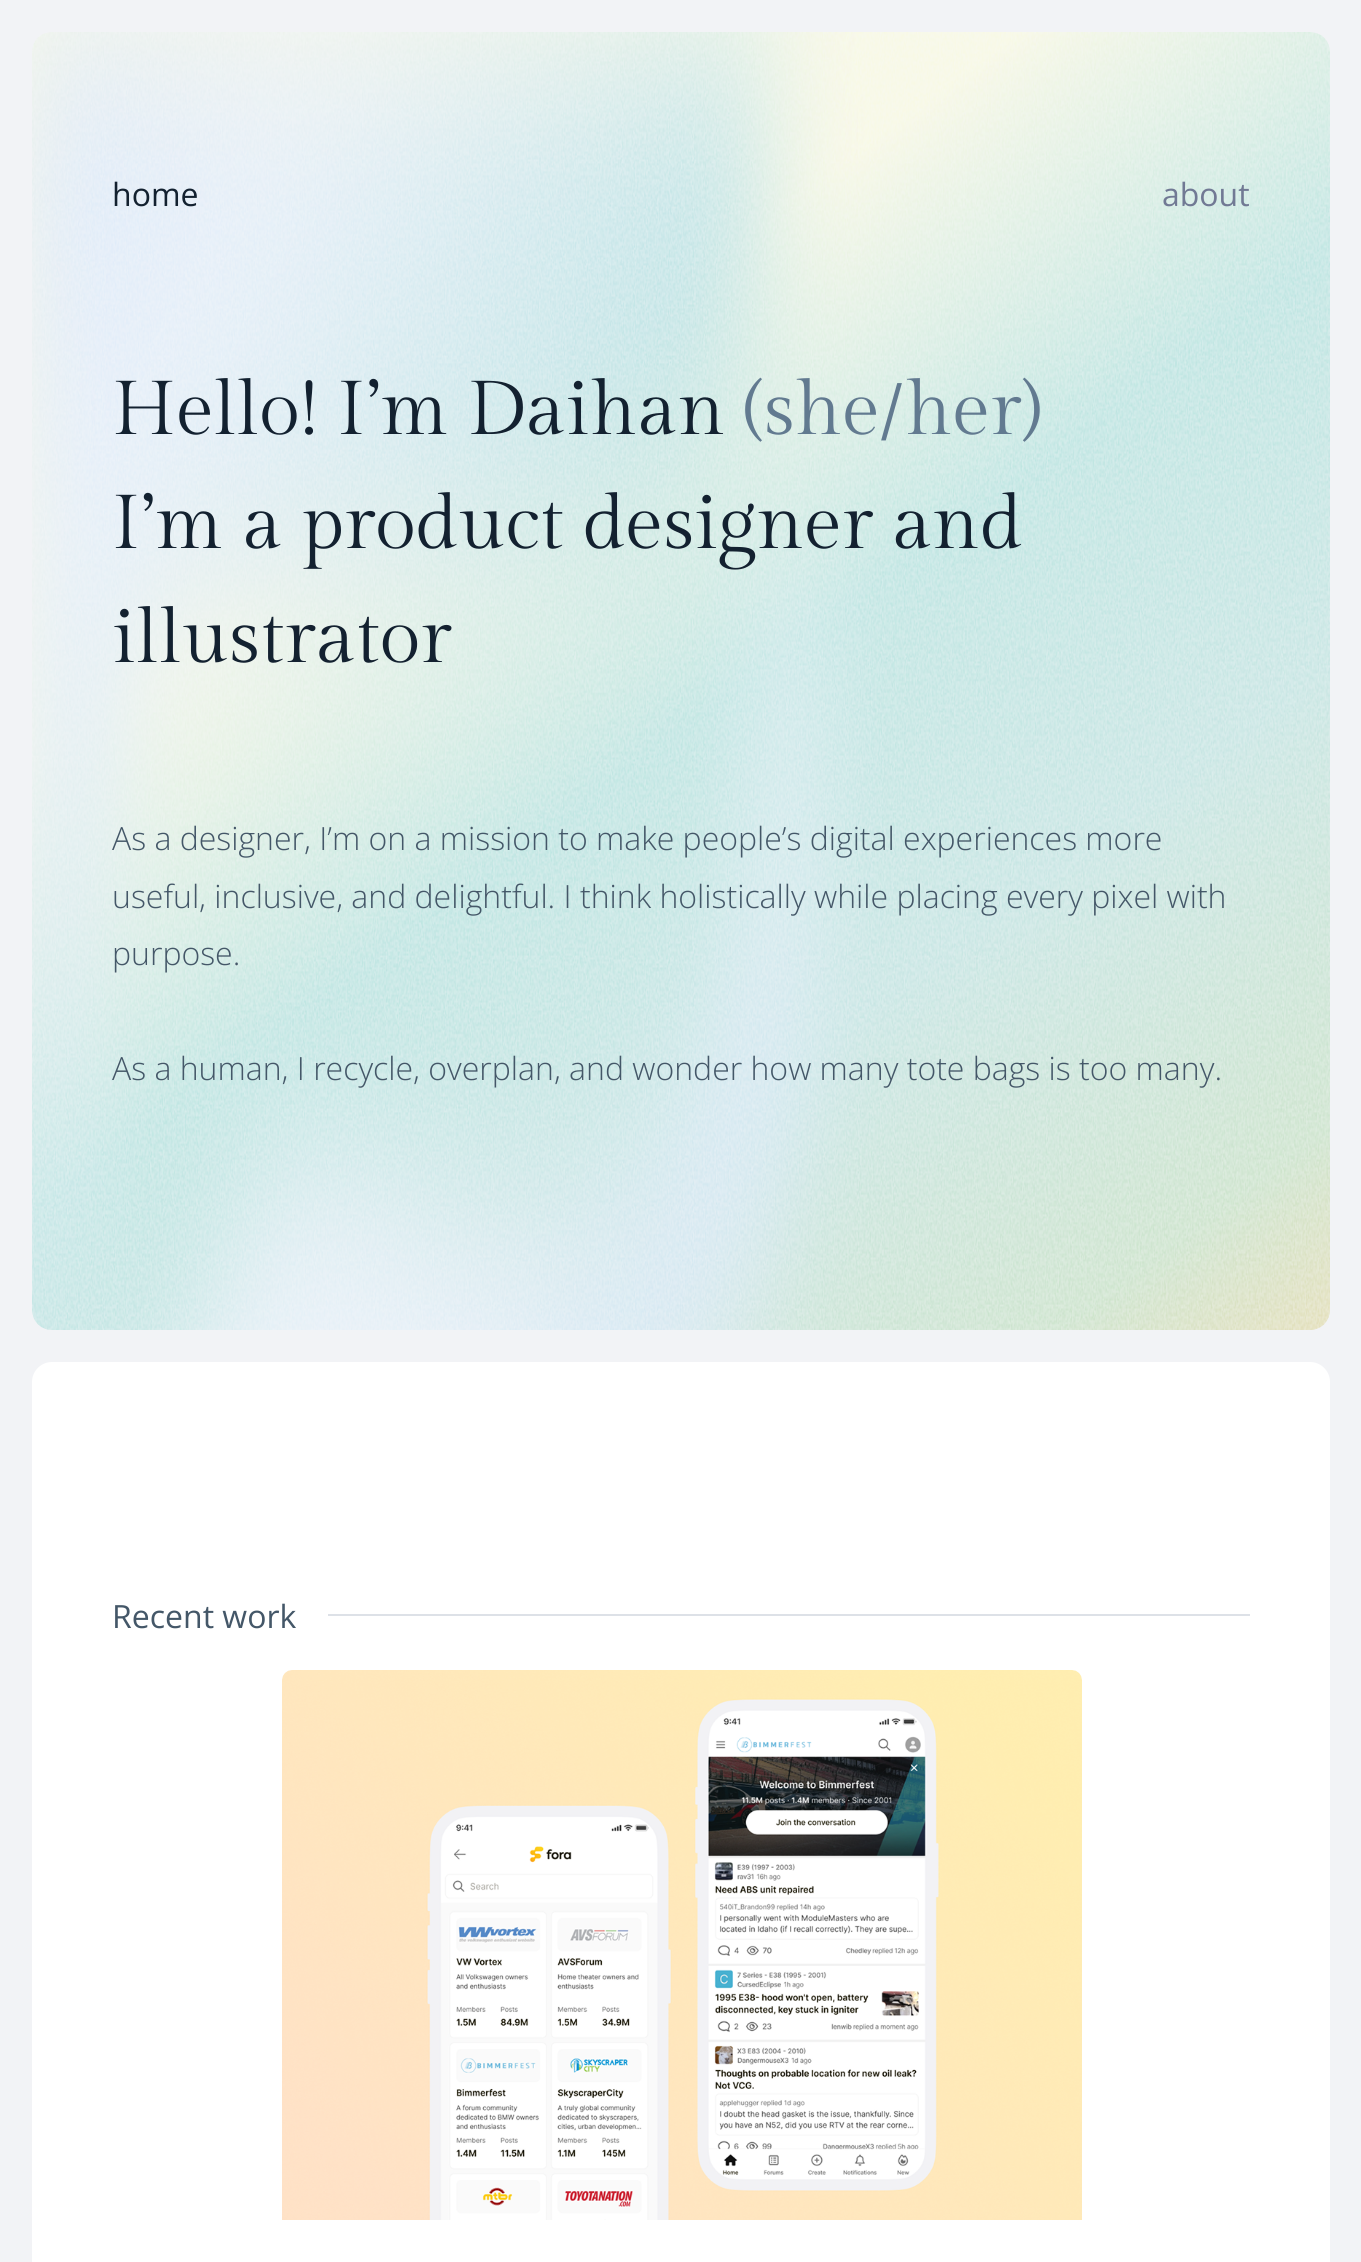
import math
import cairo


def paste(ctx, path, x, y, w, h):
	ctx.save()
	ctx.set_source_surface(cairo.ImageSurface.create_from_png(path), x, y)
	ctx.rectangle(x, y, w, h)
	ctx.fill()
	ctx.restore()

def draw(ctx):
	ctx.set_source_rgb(0.949, 0.953, 0.961)
	ctx.paint()
	paste(ctx, 'media/1.png', 32, 32, 1298, 1298)
	ctx.select_font_face('Open Sans')
	ctx.set_font_size(32)
	ctx.set_source_rgb(0.078, 0.129, 0.188)
	ctx.move_to(112, 206)
	ctx.show_text('home')
	ctx.set_source_rgb(0.443, 0.475, 0.58)
	ctx.move_to(1162, 206)
	ctx.show_text('about')
	ctx.select_font_face('Gilda Display')
	ctx.set_font_size(76)
	ctx.set_source_rgb(0.078, 0.129, 0.188)
	ctx.move_to(112, 434)
	ctx.show_text('Hello! I’m Daihan')
	ctx.set_source_rgb(0.384, 0.478, 0.565)
	ctx.move_to(744, 434)
	ctx.show_text('(she/her)')
	ctx.set_source_rgb(0.078, 0.129, 0.188)
	ctx.move_to(112, 548)
	ctx.show_text('I’m a product designer and')
	ctx.move_to(112, 662)
	ctx.show_text('illustrator')
	ctx.select_font_face('Open Sans Light')
	ctx.set_font_size(32)
	ctx.set_source_rgb(0.267, 0.341, 0.408)
	for x, y, s in [
		(112, 850, 'As a designer, I’m on a mission to make people’s digital experiences more'),
		(112, 908, 'useful, inclusive, and delightful. I think holistically while placing every pixel with'),
		(112, 965, 'purpose.'),
		(112, 1080, 'As a human, I recycle, overplan, and wonder how many tote bags is too many.'),
	]:
		ctx.move_to(x, y)
		ctx.show_text(s)
	ctx.set_source_rgb(1, 1, 1)
	ctx.new_path()
	ctx.move_to(52, 1362)
	ctx.line_to(1310, 1362)
	ctx.curve_to(1321, 1362, 1330, 1371, 1330, 1382)
	ctx.line_to(1330, 2262)
	ctx.line_to(32, 2262)
	ctx.line_to(32, 1382)
	ctx.curve_to(32, 1371, 41, 1362, 52, 1362)
	ctx.close_path()
	ctx.fill()
	ctx.select_font_face('Open Sans')
	ctx.set_source_rgb(0.267, 0.341, 0.408)
	ctx.move_to(112, 1628)
	ctx.show_text('Recent work')
	ctx.set_source_rgb(0.867, 0.882, 0.906)
	ctx.rectangle(328, 1614, 922, 2)
	ctx.fill()
	paste(ctx, 'media/2.png', 282, 1670, 800, 550)


surface = cairo.ImageSurface(cairo.FORMAT_RGB24, 1361, 2262)
ctx = cairo.Context(surface)
options = cairo.FontOptions()
options.set_hint_metrics(cairo.HINT_METRICS_OFF)
options.set_hint_style(cairo.HINT_STYLE_NONE)
ctx.set_font_options(options)
ctx.set_miter_limit(4)
draw(ctx)
surface.write_to_png('image.png')
